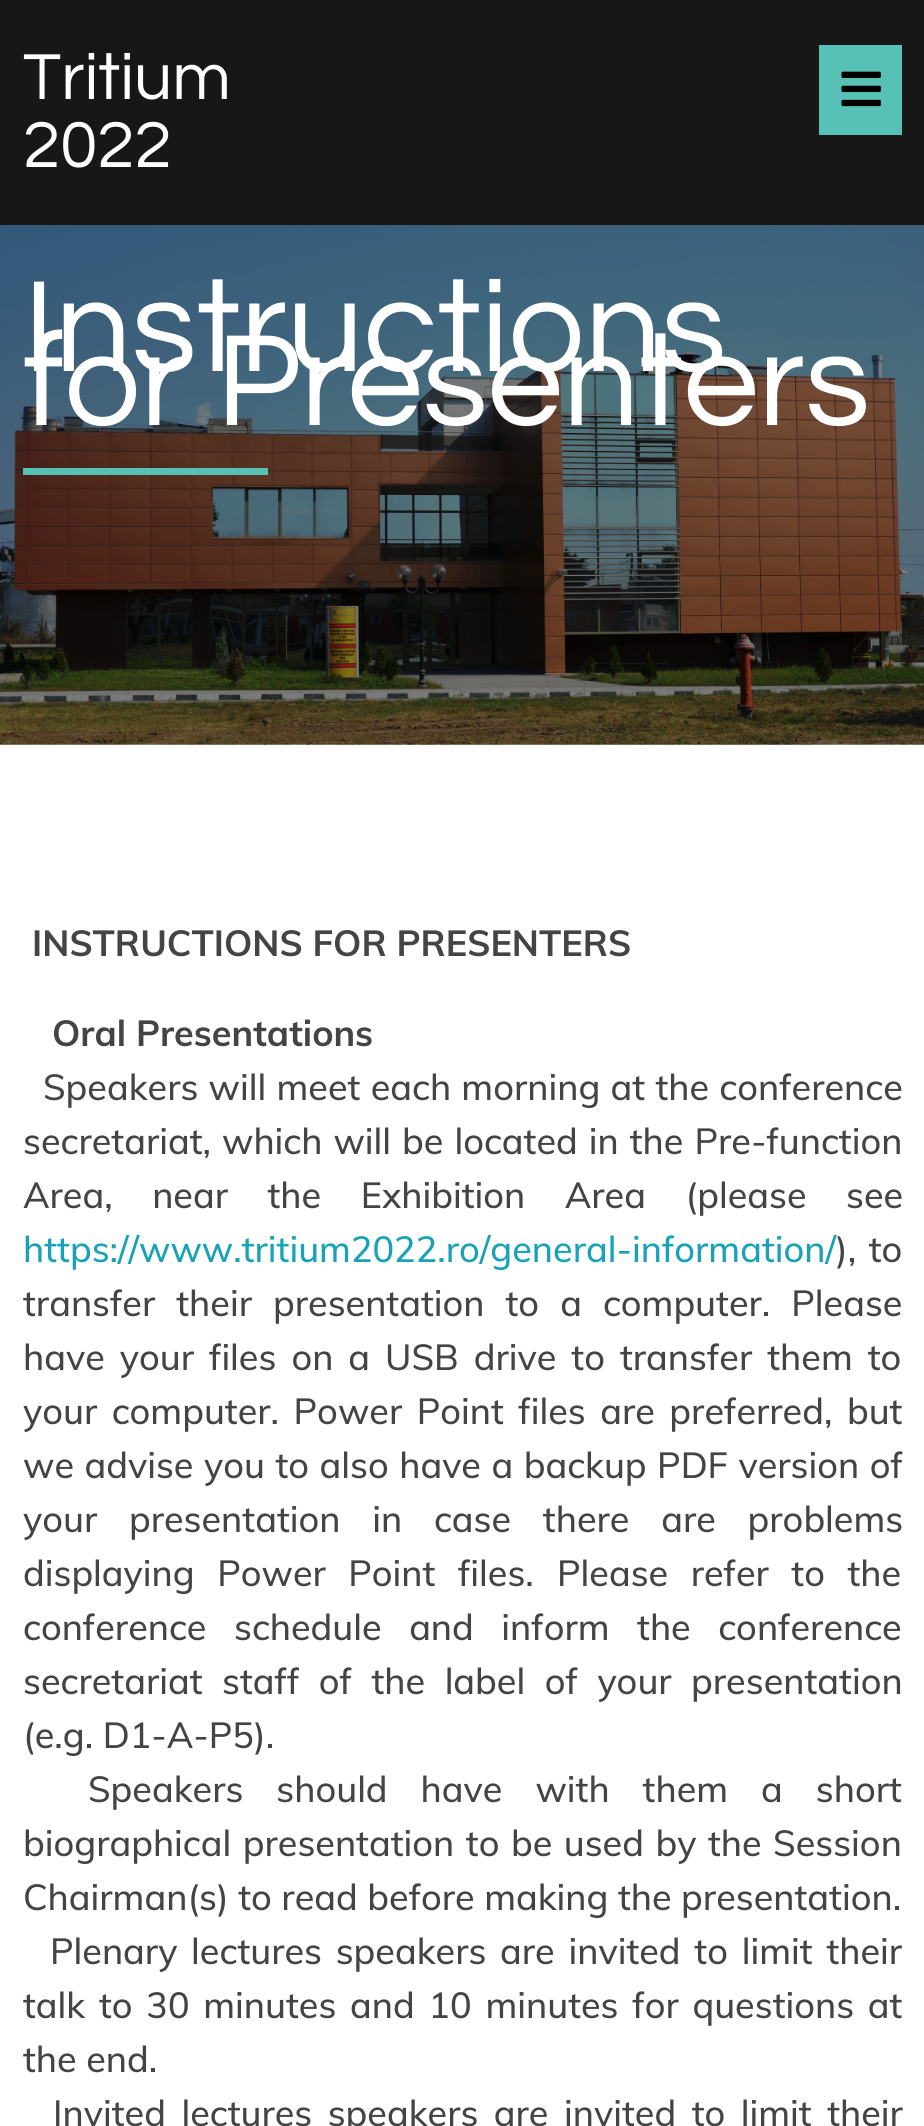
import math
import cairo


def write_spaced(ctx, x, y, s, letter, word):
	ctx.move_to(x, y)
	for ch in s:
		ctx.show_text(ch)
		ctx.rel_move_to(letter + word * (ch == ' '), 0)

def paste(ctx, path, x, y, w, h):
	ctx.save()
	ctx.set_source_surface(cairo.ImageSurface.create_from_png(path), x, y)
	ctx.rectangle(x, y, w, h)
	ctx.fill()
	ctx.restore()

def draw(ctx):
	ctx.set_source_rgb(1, 1, 1)
	ctx.paint()
	ctx.set_source_rgb(0.09, 0.09, 0.09)
	ctx.rectangle(0, 0, 924, 225)
	ctx.fill()
	ctx.select_font_face('Questrial')
	ctx.set_font_size(67.5)
	ctx.set_source_rgb(1, 1, 1)
	ctx.move_to(23, 99)
	ctx.show_text('Tritium')
	ctx.move_to(23, 167)
	ctx.show_text('2022')
	ctx.set_source_rgb(0.341, 0.757, 0.714)
	ctx.rectangle(819, 45, 83, 90)
	ctx.fill()
	paste(ctx, 'media/1.png', 841, 71, 40, 36)
	paste(ctx, 'media/2.png', 0, 225, 924, 520)
	ctx.set_font_size(135)
	ctx.set_source_rgb(1, 1, 1)
	ctx.move_to(23, 371)
	ctx.show_text('Instructions')
	ctx.move_to(23, 425)
	ctx.show_text('for Presenters')
	ctx.set_source_rgb(0.341, 0.757, 0.714)
	ctx.rectangle(23, 468, 245, 7)
	ctx.fill()
	ctx.select_font_face('Muli', cairo.FONT_SLANT_NORMAL, cairo.FONT_WEIGHT_BOLD)
	ctx.set_font_size(36)
	ctx.set_source_rgb(0.267, 0.267, 0.267)
	ctx.move_to(32, 956)
	ctx.show_text('INSTRUCTIONS FOR PRESENTERS')
	ctx.move_to(52, 1046)
	ctx.show_text('Oral Presentations')
	ctx.select_font_face('Muli Medium')
	write_spaced(ctx, 43, 1100, 'Speakers will meet each morning at the conference', 0, 0.75)
	write_spaced(ctx, 23, 1154, 'secretariat, which will be located in the Pre-function', 0, 1.5)
	write_spaced(ctx, 23, 1208, 'Area, near the Exhibition Area (please see', 0, 30)
	ctx.set_source_rgb(0.09, 0.635, 0.722)
	ctx.move_to(23, 1262)
	ctx.show_text('https://www.tritium2022.ro/general-information/')
	ctx.set_source_rgb(0.267, 0.267, 0.267)
	write_spaced(ctx, 836, 1262, '), to', 0, 3)
	write_spaced(ctx, 23, 1316, 'transfer their presentation to a computer. Please', 0, 11.5)
	write_spaced(ctx, 23, 1370, 'have your files on a USB drive to transfer them to', 0, 5.5)
	write_spaced(ctx, 23, 1424, 'your computer. Power Point files are preferred, but', 0, 5)
	write_spaced(ctx, 23, 1478, 'we advise you to also have a backup PDF version of', 0, 1)
	write_spaced(ctx, 23, 1532, 'your presentation in case there are problems', 0, 22.25)
	write_spaced(ctx, 23, 1586, 'displaying Power Point files.', 0, 13)
	write_spaced(ctx, 557, 1586, 'Please refer to the', 0, 13)
	write_spaced(ctx, 23, 1640, 'conference schedule and inform the conference', 0, 18)
	write_spaced(ctx, 23, 1694, 'secretariat staff of the label of your presentation', 0, 10)
	ctx.move_to(23, 1748)
	ctx.show_text('(e.g. D1-A-P5).')
	write_spaced(ctx, 88, 1802, 'Speakers should have with them a short', 0, 23.5)
	write_spaced(ctx, 23, 1856, 'biographical presentation to be used by the Session', 0, 2)
	ctx.move_to(23, 1910)
	ctx.show_text('Chairman(s) to read before making the presentation.')
	write_spaced(ctx, 50, 1964, 'Plenary lectures speakers are invited to limit their', 0, 4.25)
	write_spaced(ctx, 23, 2018, 'talk to 30 minutes and 10 minutes for questions at', 0, 4.25)
	ctx.move_to(23, 2072)
	ctx.show_text('the end.')
	write_spaced(ctx, 53, 2126, 'Invited lectures speakers are invited to limit their', 0, 6)


surface = cairo.ImageSurface(cairo.FORMAT_RGB24, 924, 2126)
ctx = cairo.Context(surface)
options = cairo.FontOptions()
options.set_hint_metrics(cairo.HINT_METRICS_OFF)
options.set_hint_style(cairo.HINT_STYLE_NONE)
ctx.set_font_options(options)
ctx.set_miter_limit(4)
draw(ctx)
surface.write_to_png('image.png')
